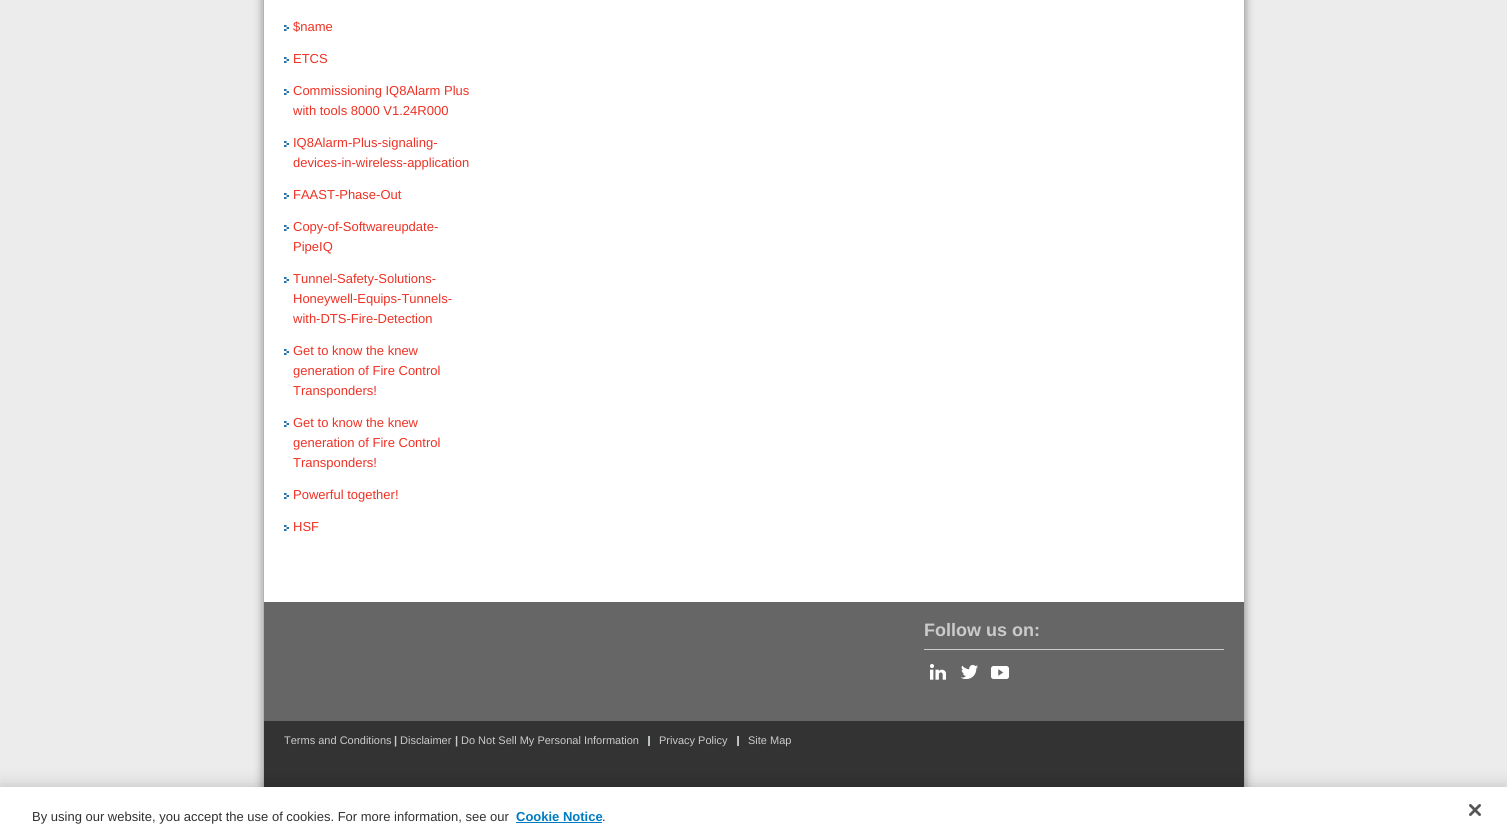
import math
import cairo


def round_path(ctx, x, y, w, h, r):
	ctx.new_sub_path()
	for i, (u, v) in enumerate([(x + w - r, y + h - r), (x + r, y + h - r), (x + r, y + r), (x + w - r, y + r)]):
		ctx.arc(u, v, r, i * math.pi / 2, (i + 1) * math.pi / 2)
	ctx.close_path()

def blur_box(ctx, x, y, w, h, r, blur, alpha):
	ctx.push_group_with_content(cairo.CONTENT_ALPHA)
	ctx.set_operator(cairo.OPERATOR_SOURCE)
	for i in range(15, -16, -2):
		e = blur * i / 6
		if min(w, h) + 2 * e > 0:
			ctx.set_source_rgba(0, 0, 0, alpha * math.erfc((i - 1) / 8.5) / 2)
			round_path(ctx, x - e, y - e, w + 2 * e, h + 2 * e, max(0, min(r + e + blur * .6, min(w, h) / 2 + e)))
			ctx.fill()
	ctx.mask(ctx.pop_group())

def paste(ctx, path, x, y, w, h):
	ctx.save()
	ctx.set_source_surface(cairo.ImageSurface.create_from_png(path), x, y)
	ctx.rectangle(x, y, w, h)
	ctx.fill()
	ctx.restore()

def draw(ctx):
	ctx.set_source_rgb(0.925, 0.925, 0.925)
	ctx.paint()
	ctx.set_source_rgb(0, 0, 0)
	blur_box(ctx, 264, -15, 980, 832, 0, 5, 0.5)
	ctx.set_source_rgb(1, 1, 1)
	ctx.rectangle(264, 0, 980, 602)
	ctx.fill()
	paste(ctx, 'media/1.png', 284, 25, 5, 6)
	ctx.select_font_face('Liberation Sans')
	ctx.set_font_size(13)
	ctx.set_source_rgb(0.933, 0.192, 0.141)
	ctx.move_to(293, 31)
	ctx.show_text('$name')
	paste(ctx, 'media/1.png', 284, 57, 5, 6)
	ctx.move_to(293, 63)
	ctx.show_text('ETCS')
	paste(ctx, 'media/1.png', 284, 89, 5, 6)
	ctx.move_to(293, 95)
	ctx.show_text('Commissioning IQ8Alarm Plus')
	ctx.move_to(293, 115)
	ctx.show_text('with tools 8000 V1.24R000')
	paste(ctx, 'media/1.png', 284, 141, 5, 6)
	ctx.move_to(293, 147)
	ctx.show_text('IQ8Alarm-Plus-signaling-')
	ctx.move_to(293, 167)
	ctx.show_text('devices-in-wireless-application')
	paste(ctx, 'media/1.png', 284, 193, 5, 6)
	ctx.move_to(293, 199)
	ctx.show_text('FAAST-Phase-Out')
	paste(ctx, 'media/1.png', 284, 225, 5, 6)
	ctx.move_to(293, 231)
	ctx.show_text('Copy-of-Softwareupdate-')
	ctx.move_to(293, 251)
	ctx.show_text('PipeIQ')
	paste(ctx, 'media/1.png', 284, 277, 5, 6)
	for x, y, s in [
		(293, 283, 'Tunnel-Safety-Solutions-'),
		(293, 303, 'Honeywell-Equips-Tunnels-'),
		(293, 323, 'with-DTS-Fire-Detection'),
	]:
		ctx.move_to(x, y)
		ctx.show_text(s)
	paste(ctx, 'media/1.png', 284, 349, 5, 6)
	for x, y, s in [
		(293, 355, 'Get to know the knew'),
		(293, 375, 'generation of Fire Control'),
		(293, 395, 'Transponders!'),
	]:
		ctx.move_to(x, y)
		ctx.show_text(s)
	paste(ctx, 'media/1.png', 284, 421, 5, 6)
	for x, y, s in [
		(293, 427, 'Get to know the knew'),
		(293, 447, 'generation of Fire Control'),
		(293, 467, 'Transponders!'),
	]:
		ctx.move_to(x, y)
		ctx.show_text(s)
	paste(ctx, 'media/1.png', 284, 493, 5, 6)
	ctx.move_to(293, 499)
	ctx.show_text('Powerful together!')
	paste(ctx, 'media/1.png', 284, 525, 5, 6)
	ctx.move_to(293, 531)
	ctx.show_text('HSF')
	ctx.set_source_rgb(0.4, 0.4, 0.4)
	ctx.rectangle(264, 602, 980, 119)
	ctx.fill()
	ctx.set_source_rgb(0.796, 0.796, 0.796)
	ctx.rectangle(924, 649, 300, 1)
	ctx.fill()
	ctx.select_font_face('Liberation Sans', cairo.FONT_SLANT_NORMAL, cairo.FONT_WEIGHT_BOLD)
	ctx.set_font_size(18)
	ctx.move_to(924, 636)
	ctx.show_text('Follow us on:')
	paste(ctx, 'media/2.png', 930, 664, 16, 16)
	paste(ctx, 'media/3.png', 961, 665, 17, 14)
	paste(ctx, 'media/4.png', 991, 666, 18, 13)
	ctx.set_source_rgb(0.2, 0.2, 0.2)
	ctx.rectangle(264, 721, 980, 66)
	ctx.fill()
	ctx.select_font_face('Liberation Sans')
	ctx.set_font_size(11)
	ctx.set_source_rgb(0.796, 0.796, 0.796)
	ctx.move_to(284, 744)
	ctx.show_text('Terms and Conditions')
	ctx.select_font_face('Liberation Sans', cairo.FONT_SLANT_NORMAL, cairo.FONT_WEIGHT_BOLD)
	ctx.move_to(394, 744)
	ctx.show_text('|')
	ctx.select_font_face('Liberation Sans')
	ctx.move_to(400, 744)
	ctx.show_text('Disclaimer')
	ctx.select_font_face('Liberation Sans', cairo.FONT_SLANT_NORMAL, cairo.FONT_WEIGHT_BOLD)
	ctx.move_to(455, 744)
	ctx.show_text('|')
	ctx.select_font_face('Liberation Sans')
	ctx.move_to(461, 744)
	ctx.show_text('Do Not Sell My Personal Information')
	paste(ctx, 'media/5.png', 648, 736, 2, 10)
	ctx.move_to(659, 744)
	ctx.show_text('Privacy Policy')
	paste(ctx, 'media/5.png', 737, 736, 2, 10)
	ctx.move_to(748, 744)
	ctx.show_text('Site Map')
	ctx.set_source_rgb(0, 0, 0)
	blur_box(ctx, 0, 787, 1507, 50, 0, 9, 0.2)
	ctx.set_source_rgb(1, 1, 1)
	ctx.rectangle(0, 787, 1507, 50)
	ctx.fill()
	ctx.set_font_size(13)
	ctx.set_source_rgb(0.188, 0.188, 0.188)
	ctx.move_to(32, 821)
	ctx.show_text('By using our website, you accept the use of cookies. For more information, see our')
	ctx.select_font_face('Liberation Sans', cairo.FONT_SLANT_NORMAL, cairo.FONT_WEIGHT_BOLD)
	ctx.set_source_rgb(0, 0.482, 0.761)
	ctx.move_to(516, 821)
	ctx.show_text('Cookie Notice')
	ctx.rectangle(516, 822, 86, 1)
	ctx.fill()
	ctx.select_font_face('Liberation Sans')
	ctx.set_source_rgb(0.188, 0.188, 0.188)
	ctx.move_to(602, 821)
	ctx.show_text('.')
	paste(ctx, 'media/6.png', 1469, 804, 12, 12)


surface = cairo.ImageSurface(cairo.FORMAT_RGB24, 1507, 837)
ctx = cairo.Context(surface)
options = cairo.FontOptions()
options.set_hint_metrics(cairo.HINT_METRICS_OFF)
options.set_hint_style(cairo.HINT_STYLE_NONE)
ctx.set_font_options(options)
ctx.set_miter_limit(4)
draw(ctx)
surface.write_to_png('image.png')
